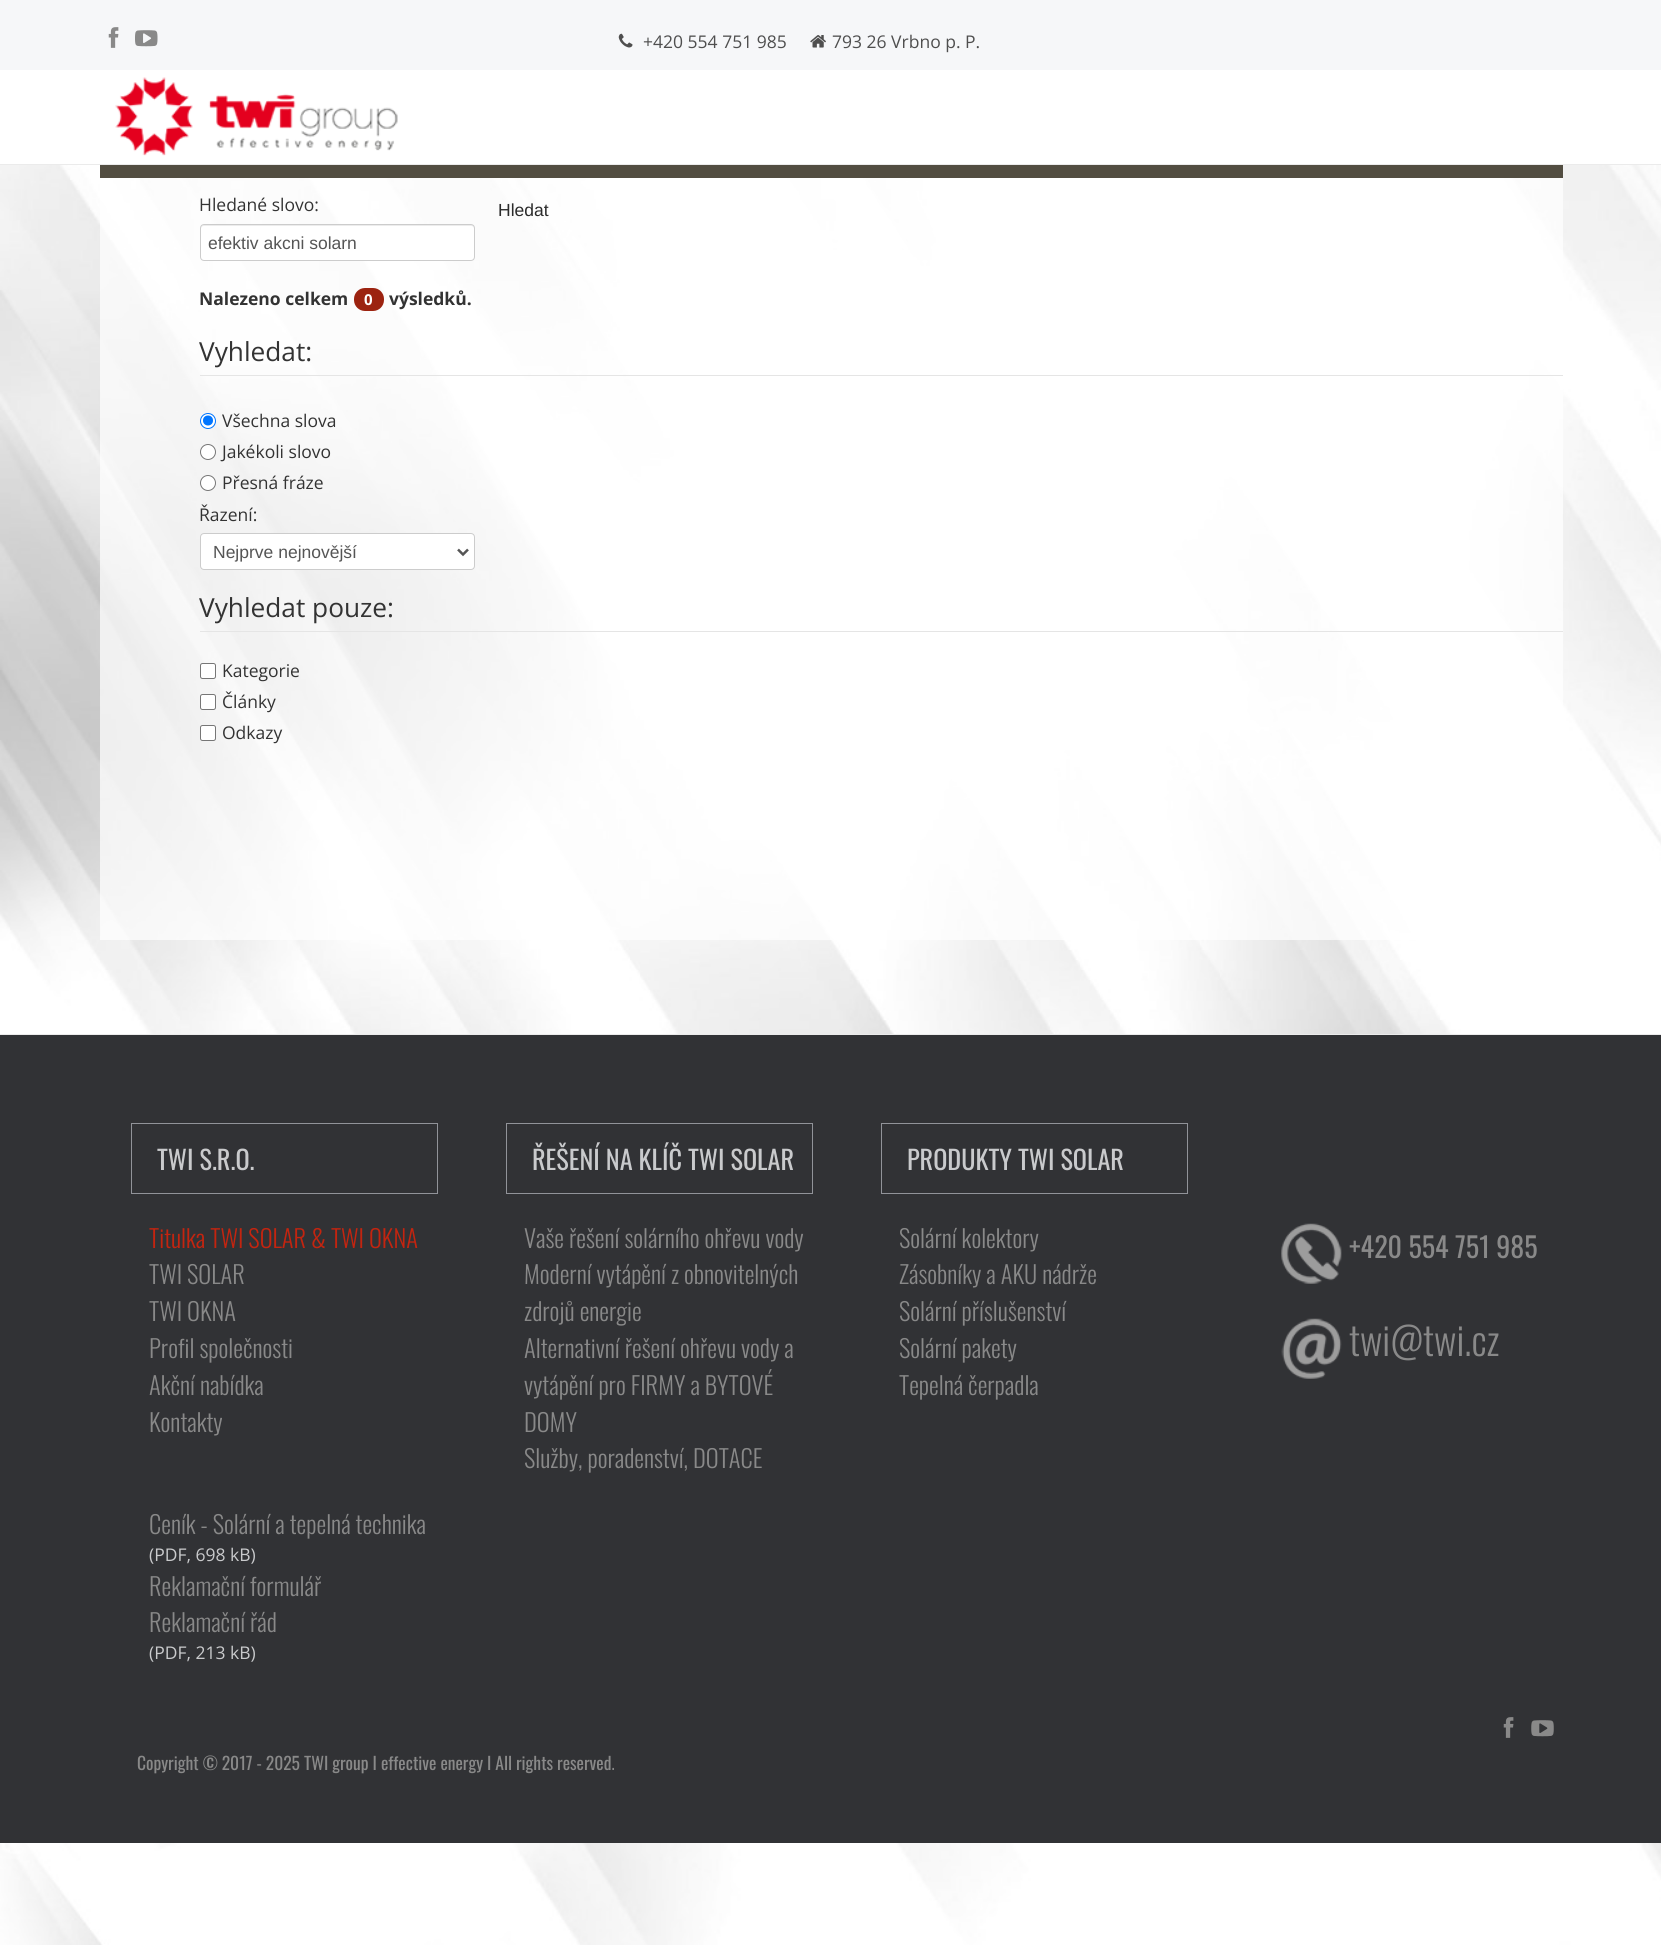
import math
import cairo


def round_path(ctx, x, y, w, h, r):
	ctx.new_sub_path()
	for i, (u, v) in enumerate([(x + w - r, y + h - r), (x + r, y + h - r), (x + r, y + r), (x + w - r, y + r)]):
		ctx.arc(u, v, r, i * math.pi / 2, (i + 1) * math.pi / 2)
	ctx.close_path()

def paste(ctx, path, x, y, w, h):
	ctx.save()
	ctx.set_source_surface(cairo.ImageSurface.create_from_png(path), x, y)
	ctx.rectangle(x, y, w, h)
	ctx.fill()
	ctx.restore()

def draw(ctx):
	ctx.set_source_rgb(1, 1, 1)
	ctx.paint()
	paste(ctx, 'media/1.png', 0, 165, 1661, 1780)
	ctx.set_source_rgb(0.918, 0.918, 0.918)
	ctx.rectangle(0, 164, 1661, 1)
	ctx.fill()
	ctx.set_source_rgb(0.961, 0.965, 0.973)
	ctx.rectangle(0, 0, 1661, 70)
	ctx.fill()
	paste(ctx, 'media/2.png', 108, 27, 11, 21)
	paste(ctx, 'media/3.png', 135, 30, 23, 17)
	paste(ctx, 'media/4.png', 618, 33, 15, 15)
	ctx.select_font_face('Open Sans')
	ctx.set_font_size(17.5)
	ctx.set_source_rgb(0.31, 0.31, 0.31)
	ctx.move_to(643, 48)
	ctx.show_text('+420 554 751 985')
	paste(ctx, 'media/5.png', 810, 35, 16, 13)
	ctx.move_to(832, 48)
	ctx.show_text('793 26 Vrbno p. P.')
	paste(ctx, 'media/6.png', 115, 77, 283, 79)
	ctx.set_source_rgb(0.322, 0.302, 0.255)
	ctx.rectangle(100, 165, 1463, 13)
	ctx.fill()
	ctx.set_source_rgba(1, 1, 1, 0.7)
	ctx.rectangle(100, 178, 1463, 762)
	ctx.fill()
	ctx.set_source_rgb(0.2, 0.2, 0.2)
	ctx.move_to(199, 211)
	ctx.show_text('Hledané slovo:')
	ctx.set_source_rgb(1, 1, 1)
	round_path(ctx, 200, 224, 275, 37, 4)
	ctx.fill()
	ctx.set_source_rgb(0.925, 0.925, 0.925)
	ctx.new_path()
	ctx.move_to(204, 226)
	ctx.line_to(471, 226)
	ctx.curve_to(473, 226, 474, 227, 474, 229)
	ctx.line_to(474, 228)
	ctx.curve_to(474, 226, 473, 225, 472, 225)
	ctx.line_to(204, 225)
	ctx.curve_to(202, 225, 201, 226, 201, 228)
	ctx.line_to(201, 229)
	ctx.curve_to(201, 227, 202, 226, 204, 226)
	ctx.close_path()
	ctx.fill()
	round_path(ctx, 200.5, 224.5, 274, 36, 3.5)
	ctx.set_source_rgb(0.8, 0.8, 0.8)
	ctx.set_line_width(1)
	ctx.stroke()
	ctx.select_font_face('Liberation Sans')
	ctx.set_source_rgb(0.333, 0.333, 0.333)
	ctx.move_to(208, 249)
	ctx.show_text('efektiv akcni solarn')
	ctx.set_source_rgb(0.169, 0.169, 0.169)
	ctx.move_to(498, 216)
	ctx.show_text('Hledat')
	ctx.select_font_face('Open Sans', cairo.FONT_SLANT_NORMAL, cairo.FONT_WEIGHT_BOLD)
	ctx.set_source_rgb(0.2, 0.2, 0.2)
	ctx.move_to(199, 305)
	ctx.show_text('Nalezeno celkem')
	ctx.set_source_rgb(0.612, 0.137, 0.063)
	round_path(ctx, 354, 288, 30, 23, 11)
	ctx.fill()
	ctx.set_font_size(15)
	ctx.set_source_rgb(1, 1, 1)
	ctx.move_to(364, 305)
	ctx.show_text('0')
	ctx.set_font_size(17.5)
	ctx.set_source_rgb(0.2, 0.2, 0.2)
	ctx.move_to(389, 305)
	ctx.show_text('výsledků.')
	ctx.set_source_rgb(0.898, 0.898, 0.898)
	ctx.rectangle(200, 375, 1363, 1)
	ctx.fill()
	ctx.select_font_face('Open Sans')
	ctx.set_font_size(26.25)
	ctx.set_source_rgb(0.2, 0.2, 0.2)
	ctx.move_to(199, 361)
	ctx.show_text('Vyhledat:')
	ctx.set_source_rgb(1, 1, 1)
	ctx.new_path()
	ctx.arc(208, 421, 7.5, 0, 2 * math.pi)
	ctx.fill_preserve()
	ctx.set_source_rgb(0, 0.459, 1)
	ctx.stroke()
	ctx.arc(208, 420.5, 5, 0, 2 * math.pi)
	ctx.fill()
	ctx.set_font_size(17.5)
	ctx.set_source_rgb(0.2, 0.2, 0.2)
	ctx.move_to(222, 427)
	ctx.show_text('Všechna slova')
	ctx.set_source_rgb(1, 1, 1)
	ctx.new_path()
	ctx.arc(208, 452, 7.5, 0, 2 * math.pi)
	ctx.fill_preserve()
	ctx.set_source_rgb(0.463, 0.463, 0.463)
	ctx.stroke()
	ctx.set_source_rgb(0.2, 0.2, 0.2)
	ctx.move_to(222, 458)
	ctx.show_text('Jakékoli slovo')
	ctx.set_source_rgb(1, 1, 1)
	ctx.new_path()
	ctx.arc(208, 483, 7.5, 0, 2 * math.pi)
	ctx.fill_preserve()
	ctx.set_source_rgb(0.463, 0.463, 0.463)
	ctx.stroke()
	ctx.set_source_rgb(0.2, 0.2, 0.2)
	ctx.move_to(222, 489)
	ctx.show_text('Přesná fráze')
	ctx.move_to(199, 521)
	ctx.show_text('Řazení:')
	ctx.set_source_rgb(1, 1, 1)
	round_path(ctx, 200.5, 533.5, 274, 36, 3.5)
	ctx.fill_preserve()
	ctx.set_source_rgb(0.8, 0.8, 0.8)
	ctx.stroke()
	ctx.new_path()
	ctx.move_to(458, 549.5)
	ctx.line_to(463, 554.5)
	ctx.line_to(468, 549.5)
	ctx.set_source_rgb(0.333, 0.333, 0.333)
	ctx.set_line_width(2.5)
	ctx.stroke()
	ctx.select_font_face('Liberation Sans')
	ctx.move_to(213, 558)
	ctx.show_text('Nejprve nejnovější')
	ctx.set_source_rgb(0.898, 0.898, 0.898)
	ctx.rectangle(200, 631, 1363, 1)
	ctx.fill()
	ctx.select_font_face('Open Sans')
	ctx.set_font_size(26.25)
	ctx.set_source_rgb(0.2, 0.2, 0.2)
	ctx.move_to(199, 617)
	ctx.show_text('Vyhledat pouze:')
	ctx.set_source_rgb(1, 1, 1)
	round_path(ctx, 200.5, 663.5, 15, 15, 2)
	ctx.fill_preserve()
	ctx.set_source_rgb(0.463, 0.463, 0.463)
	ctx.set_line_width(1)
	ctx.stroke()
	ctx.set_font_size(17.5)
	ctx.set_source_rgb(0.2, 0.2, 0.2)
	ctx.move_to(222, 677)
	ctx.show_text('Kategorie')
	ctx.set_source_rgb(1, 1, 1)
	round_path(ctx, 200.5, 694.5, 15, 15, 2)
	ctx.fill_preserve()
	ctx.set_source_rgb(0.463, 0.463, 0.463)
	ctx.stroke()
	ctx.set_source_rgb(0.2, 0.2, 0.2)
	ctx.move_to(222, 708)
	ctx.show_text('Články')
	ctx.set_source_rgb(1, 1, 1)
	round_path(ctx, 200.5, 725.5, 15, 15, 2)
	ctx.fill_preserve()
	ctx.set_source_rgb(0.463, 0.463, 0.463)
	ctx.stroke()
	ctx.set_source_rgb(0.2, 0.2, 0.2)
	ctx.move_to(222, 739)
	ctx.show_text('Odkazy')
	ctx.set_source_rgb(0.192, 0.196, 0.208)
	ctx.rectangle(0, 1035, 1661, 808)
	ctx.fill()
	ctx.set_source_rgb(0.918, 0.918, 0.918)
	ctx.rectangle(0, 1034, 1661, 1)
	ctx.fill()
	ctx.rectangle(131.5, 1123.5, 306, 70)
	ctx.set_source_rgb(0.569, 0.576, 0.6)
	ctx.stroke()
	ctx.select_font_face('Oswald')
	ctx.set_font_size(26.25)
	ctx.set_source_rgb(0.788, 0.792, 0.8)
	ctx.move_to(157, 1170)
	ctx.show_text('TWI S.R.O.')
	ctx.select_font_face('Oswald Light')
	ctx.set_font_size(24.5)
	ctx.set_source_rgb(0.769, 0.141, 0.059)
	ctx.move_to(149, 1248)
	ctx.show_text('Titulka TWI SOLAR & TWI OKNA')
	ctx.set_source_rgb(0.537, 0.537, 0.537)
	for x, y, s in [
		(149, 1284, 'TWI SOLAR'),
		(149, 1321, 'TWI OKNA'),
		(149, 1358, 'Profil společnosti'),
		(149, 1395, 'Akční nabídka'),
		(149, 1432, 'Kontakty'),
		(149, 1534, 'Ceník - Solární a tepelná technika'),
	]:
		ctx.move_to(x, y)
		ctx.show_text(s)
	ctx.select_font_face('Open Sans')
	ctx.set_font_size(17.5)
	ctx.set_source_rgb(0.788, 0.792, 0.8)
	ctx.move_to(149, 1561)
	ctx.show_text('(PDF, 698 kB)')
	ctx.select_font_face('Oswald Light')
	ctx.set_font_size(24.5)
	ctx.set_source_rgb(0.537, 0.537, 0.537)
	ctx.move_to(149, 1596)
	ctx.show_text('Reklamační formulář')
	ctx.move_to(149, 1632)
	ctx.show_text('Reklamační řád')
	ctx.select_font_face('Open Sans')
	ctx.set_font_size(17.5)
	ctx.set_source_rgb(0.788, 0.792, 0.8)
	ctx.move_to(149, 1659)
	ctx.show_text('(PDF, 213 kB)')
	ctx.rectangle(506.5, 1123.5, 306, 70)
	ctx.set_source_rgb(0.569, 0.576, 0.6)
	ctx.stroke()
	ctx.select_font_face('Oswald')
	ctx.set_font_size(26.25)
	ctx.set_source_rgb(0.788, 0.792, 0.8)
	ctx.move_to(532, 1170)
	ctx.show_text('ŘEŠENÍ NA KLÍČ TWI SOLAR')
	ctx.select_font_face('Oswald Light')
	ctx.set_font_size(24.5)
	ctx.set_source_rgb(0.537, 0.537, 0.537)
	for x, y, s in [
		(524, 1248, 'Vaše řešení solárního ohřevu vody'),
		(524, 1284, 'Moderní vytápění z obnovitelných'),
		(524, 1321, 'zdrojů energie'),
		(524, 1358, 'Alternativní řešení ohřevu vody a'),
		(524, 1395, 'vytápění pro FIRMY a BYTOVÉ'),
		(524, 1432, 'DOMY'),
		(524, 1468, 'Služby, poradenství, DOTACE'),
	]:
		ctx.move_to(x, y)
		ctx.show_text(s)
	ctx.rectangle(881.5, 1123.5, 306, 70)
	ctx.set_source_rgb(0.569, 0.576, 0.6)
	ctx.stroke()
	ctx.select_font_face('Oswald')
	ctx.set_font_size(26.25)
	ctx.set_source_rgb(0.788, 0.792, 0.8)
	ctx.move_to(907, 1170)
	ctx.show_text('PRODUKTY TWI SOLAR')
	ctx.select_font_face('Oswald Light')
	ctx.set_font_size(24.5)
	ctx.set_source_rgb(0.537, 0.537, 0.537)
	for x, y, s in [
		(899, 1248, 'Solární kolektory'),
		(899, 1284, 'Zásobníky a AKU nádrže'),
		(899, 1321, 'Solární příslušenství'),
		(899, 1358, 'Solární pakety'),
		(899, 1395, 'Tepelná čerpadla'),
	]:
		ctx.move_to(x, y)
		ctx.show_text(s)
	paste(ctx, 'media/7.png', 1281, 1223, 61, 61)
	ctx.select_font_face('Oswald')
	ctx.set_font_size(28)
	ctx.move_to(1349, 1258)
	ctx.show_text('+420 554 751 985')
	paste(ctx, 'media/8.png', 1281, 1318, 61, 61)
	ctx.select_font_face('Oswald Light')
	ctx.set_font_size(39)
	ctx.move_to(1349, 1356)
	ctx.show_text('twi@twi.cz')
	paste(ctx, 'media/9.png', 1503, 1717, 11, 21)
	paste(ctx, 'media/10.png', 1531, 1720, 23, 17)
	ctx.select_font_face('Oswald')
	ctx.set_font_size(17.5)
	ctx.move_to(137, 1770)
	ctx.show_text('Copyright © 2017 - 2025 TWI group I effective energy I All rights reserved.')


surface = cairo.ImageSurface(cairo.FORMAT_RGB24, 1661, 1945)
ctx = cairo.Context(surface)
options = cairo.FontOptions()
options.set_hint_metrics(cairo.HINT_METRICS_OFF)
options.set_hint_style(cairo.HINT_STYLE_NONE)
ctx.set_font_options(options)
ctx.set_miter_limit(4)
draw(ctx)
surface.write_to_png('image.png')
